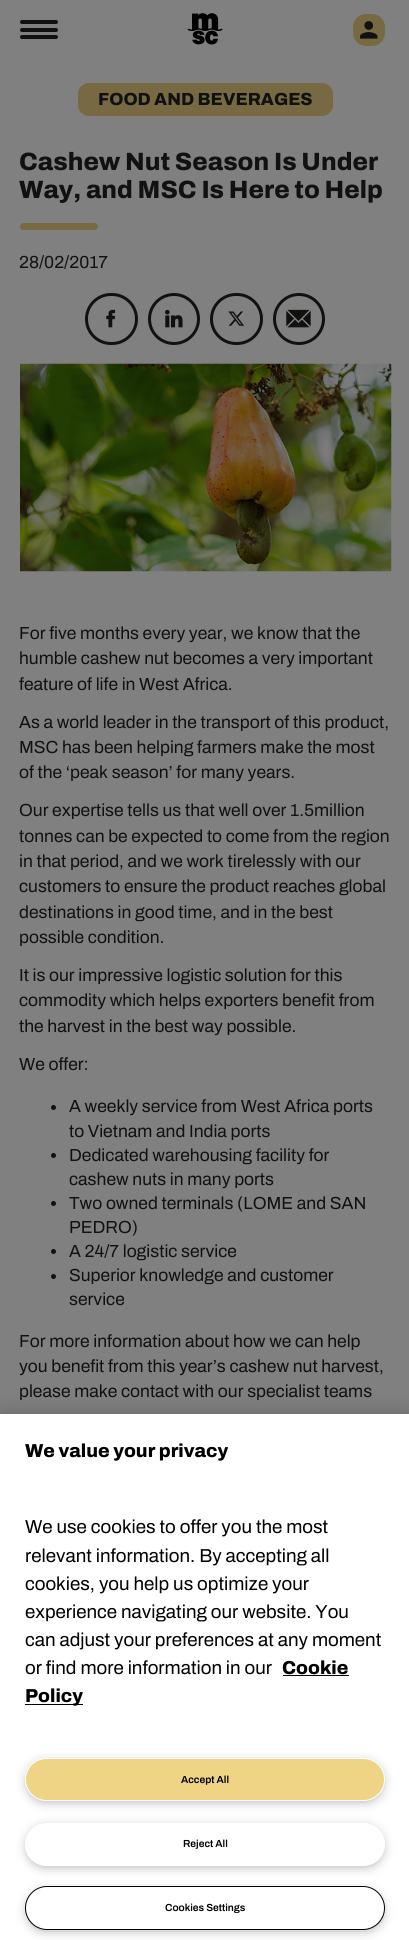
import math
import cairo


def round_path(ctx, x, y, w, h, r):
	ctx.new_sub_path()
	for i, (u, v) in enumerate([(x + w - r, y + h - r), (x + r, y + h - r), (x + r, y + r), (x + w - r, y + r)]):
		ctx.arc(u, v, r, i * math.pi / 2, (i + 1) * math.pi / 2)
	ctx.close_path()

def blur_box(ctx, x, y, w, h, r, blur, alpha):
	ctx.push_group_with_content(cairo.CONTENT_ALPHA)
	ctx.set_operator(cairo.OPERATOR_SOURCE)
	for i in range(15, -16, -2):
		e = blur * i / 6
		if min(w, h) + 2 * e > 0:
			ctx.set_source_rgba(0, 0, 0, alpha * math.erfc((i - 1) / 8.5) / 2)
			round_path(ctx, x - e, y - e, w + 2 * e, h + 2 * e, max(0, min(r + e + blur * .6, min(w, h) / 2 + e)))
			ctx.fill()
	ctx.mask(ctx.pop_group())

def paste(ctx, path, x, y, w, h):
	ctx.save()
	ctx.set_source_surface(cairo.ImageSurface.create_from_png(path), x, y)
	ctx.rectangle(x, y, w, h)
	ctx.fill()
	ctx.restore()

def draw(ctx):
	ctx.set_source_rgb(0.502, 0.502, 0.502)
	ctx.paint()
	ctx.set_source_rgb(0.067, 0.067, 0.067)
	round_path(ctx, 20, 20, 38, 4, 2)
	ctx.fill()
	round_path(ctx, 20, 28, 38, 4, 2)
	ctx.fill()
	round_path(ctx, 20, 35, 38, 4, 2)
	ctx.fill()
	paste(ctx, 'media/1.png', 187, 13, 36, 32)
	ctx.set_source_rgb(0.467, 0.416, 0.259)
	round_path(ctx, 353, 14, 32, 32, 13)
	ctx.fill()
	paste(ctx, 'media/2.png', 360, 21, 18, 18)
	round_path(ctx, 79.5, 84.5, 252, 30, 9.5)
	ctx.fill_preserve()
	ctx.set_line_width(3)
	ctx.stroke()
	ctx.select_font_face('Archivo ExtraBold')
	ctx.set_font_size(17.5)
	ctx.set_source_rgb(0.067, 0.067, 0.067)
	ctx.move_to(98, 105)
	ctx.show_text('FOOD AND BEVERAGES')
	ctx.set_font_size(25)
	ctx.move_to(19, 170)
	ctx.show_text('Cashew Nut Season Is Under')
	ctx.move_to(19, 198)
	ctx.show_text('Way, and MSC Is Here to Help')
	ctx.set_source_rgb(0.467, 0.416, 0.259)
	round_path(ctx, 20, 223, 78, 7, 3.5)
	ctx.fill()
	ctx.select_font_face('Archivo')
	ctx.set_font_size(17.5)
	ctx.set_source_rgb(0.067, 0.067, 0.067)
	ctx.move_to(19, 268)
	ctx.show_text('28/02/2017')
	round_path(ctx, 86.5, 294.5, 50, 49, 24.5)
	ctx.stroke()
	paste(ctx, 'media/3.png', 106, 309, 10, 19)
	ctx.arc(174, 319, 24.5, 0, 2 * math.pi)
	ctx.stroke()
	paste(ctx, 'media/4.png', 165, 309, 18, 19)
	round_path(ctx, 211.5, 294.5, 50, 49, 24.5)
	ctx.stroke()
	paste(ctx, 'media/5.png', 228, 311, 16, 15)
	ctx.arc(299, 319, 24.5, 0, 2 * math.pi)
	ctx.stroke()
	paste(ctx, 'media/6.png', 286, 309, 25, 19)
	paste(ctx, 'media/7.png', 20, 363, 372, 209)
	for x, y, s in [
		(19, 639, 'For five months every year, we know that the'),
		(19, 664, 'humble cashew nut becomes a very important'),
		(19, 690, 'feature of life in West Africa.'),
		(19, 728, 'As a world leader in the transport of this product,'),
		(19, 753, 'MSC has been helping farmers make the most'),
		(19, 778, 'of the ‘peak season’ for many years.'),
		(19, 816, 'Our expertise tells us that well over 1.5million'),
		(19, 842, 'tonnes can be expected to come from the region'),
		(19, 867, 'in that period, and we work tirelessly with our'),
		(19, 892, 'customers to ensure the product reaches global'),
		(19, 918, 'destinations in good time, and in the best'),
		(19, 943, 'possible condition.'),
		(19, 981, 'It is our impressive logistic solution for this'),
		(19, 1006, 'commodity which helps exporters benefit from'),
		(19, 1032, 'the harvest in the best way possible.'),
		(19, 1070, 'We offer:'),
	]:
		ctx.move_to(x, y)
		ctx.show_text(s)
	ctx.new_path()
	ctx.arc(53.5, 1107.5, 2.5, 0, 2 * math.pi)
	ctx.fill()
	ctx.move_to(69, 1112)
	ctx.show_text('A weekly service from West Africa ports')
	ctx.move_to(69, 1137)
	ctx.show_text('to Vietnam and India ports')
	ctx.new_path()
	ctx.arc(53.5, 1155.5, 2.5, 0, 2 * math.pi)
	ctx.fill()
	ctx.move_to(69, 1161)
	ctx.show_text('Dedicated warehousing facility for')
	ctx.move_to(69, 1185)
	ctx.show_text('cashew nuts in many ports')
	ctx.new_path()
	ctx.arc(53.5, 1203.5, 2.5, 0, 2 * math.pi)
	ctx.fill()
	ctx.move_to(69, 1209)
	ctx.show_text('Two owned terminals (LOME and SAN')
	ctx.move_to(69, 1233)
	ctx.show_text('PEDRO)')
	ctx.new_path()
	ctx.arc(53.5, 1251.5, 2.5, 0, 2 * math.pi)
	ctx.fill()
	ctx.move_to(69, 1257)
	ctx.show_text('A 24/7 logistic service')
	ctx.new_path()
	ctx.arc(53.5, 1276.5, 2.5, 0, 2 * math.pi)
	ctx.fill()
	for x, y, s in [
		(69, 1281, 'Superior knowledge and customer'),
		(69, 1305, 'service'),
		(19, 1347, 'For more information about how we can help'),
		(19, 1372, 'you benefit from this year’s cashew nut harvest,'),
		(19, 1397, 'please make contact with our specialist teams'),
	]:
		ctx.move_to(x, y)
		ctx.show_text(s)
	ctx.set_source_rgb(0, 0, 0)
	blur_box(ctx, 0, 1414, 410, 526, 0, 11, 0.2)
	ctx.set_source_rgb(1, 1, 1)
	ctx.rectangle(0, 1414, 409, 526)
	ctx.fill()
	ctx.select_font_face('Archivo ExtraBold')
	ctx.set_font_size(18.75)
	ctx.set_source_rgb(0, 0, 0)
	ctx.move_to(25, 1457)
	ctx.show_text('We value your privacy')
	ctx.select_font_face('Archivo')
	for x, y, s in [
		(25, 1533, 'We use cookies to offer you the most'),
		(25, 1562, 'relevant information. By accepting all'),
		(25, 1590, 'cookies, you help us optimize your'),
		(25, 1618, 'experience navigating our website. You'),
		(25, 1646, 'can adjust your preferences at any moment'),
		(25, 1674, 'or find more information in our'),
	]:
		ctx.move_to(x, y)
		ctx.show_text(s)
	ctx.select_font_face('Archivo ExtraBold')
	ctx.move_to(282, 1674)
	ctx.show_text('Cookie')
	ctx.rectangle(283, 1675, 66, 1)
	ctx.fill()
	ctx.rectangle(25, 1704, 58, 1)
	ctx.fill()
	ctx.move_to(25, 1702)
	ctx.show_text('Policy')
	ctx.set_source_rgb(0.6, 0.6, 0.6)
	blur_box(ctx, 29, 1764, 352, 36, 18, 6, 1)
	ctx.set_source_rgb(0.933, 0.831, 0.518)
	round_path(ctx, 25.5, 1758.5, 359, 42, 21)
	ctx.fill_preserve()
	ctx.set_source_rgb(1, 1, 1)
	ctx.set_line_width(1)
	ctx.stroke()
	ctx.select_font_face('Archivo SemiBold')
	ctx.set_font_size(10.25)
	ctx.set_source_rgb(0, 0, 0)
	ctx.move_to(181, 1783)
	ctx.show_text('Accept All')
	ctx.set_source_rgb(0.6, 0.6, 0.6)
	blur_box(ctx, 29, 1829, 352, 36, 18, 6, 1)
	ctx.set_source_rgb(1, 1, 1)
	round_path(ctx, 25.5, 1823.5, 359, 42, 21)
	ctx.fill_preserve()
	ctx.stroke()
	ctx.set_source_rgb(0, 0, 0)
	ctx.move_to(183, 1847)
	ctx.show_text('Reject All')
	ctx.set_source_rgb(0.6, 0.6, 0.6)
	blur_box(ctx, 29, 1893, 352, 36, 18, 6, 1)
	ctx.set_source_rgb(1, 1, 1)
	round_path(ctx, 25.5, 1886.5, 359, 43, 21.5)
	ctx.fill_preserve()
	ctx.set_source_rgb(0, 0, 0)
	ctx.stroke()
	ctx.move_to(165, 1911)
	ctx.show_text('Cookies Settings')


surface = cairo.ImageSurface(cairo.FORMAT_RGB24, 409, 1940)
ctx = cairo.Context(surface)
options = cairo.FontOptions()
options.set_hint_metrics(cairo.HINT_METRICS_OFF)
options.set_hint_style(cairo.HINT_STYLE_NONE)
ctx.set_font_options(options)
ctx.set_miter_limit(4)
draw(ctx)
surface.write_to_png('image.png')
